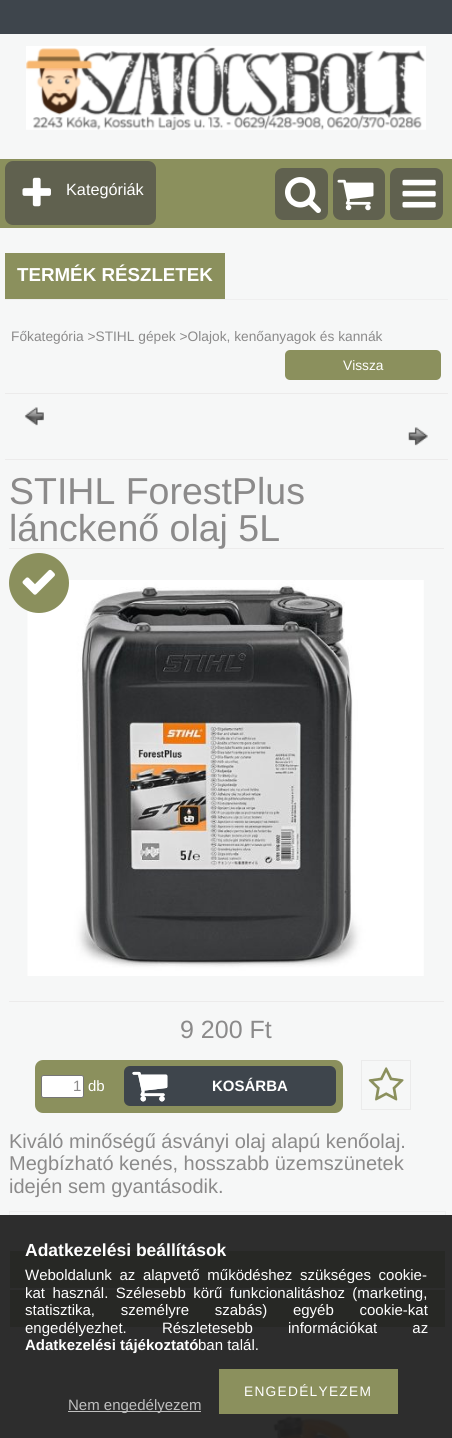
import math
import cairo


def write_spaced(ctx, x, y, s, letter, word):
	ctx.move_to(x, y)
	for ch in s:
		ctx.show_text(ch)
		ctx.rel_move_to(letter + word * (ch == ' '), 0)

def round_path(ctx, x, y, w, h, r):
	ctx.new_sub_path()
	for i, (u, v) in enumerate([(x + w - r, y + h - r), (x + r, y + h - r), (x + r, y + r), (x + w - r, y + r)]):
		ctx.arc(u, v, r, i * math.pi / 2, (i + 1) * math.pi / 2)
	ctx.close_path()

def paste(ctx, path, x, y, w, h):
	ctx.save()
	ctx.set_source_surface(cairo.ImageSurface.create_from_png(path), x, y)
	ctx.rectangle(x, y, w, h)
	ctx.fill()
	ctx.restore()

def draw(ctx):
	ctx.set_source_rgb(0.961, 0.965, 0.965)
	ctx.paint()
	ctx.set_source_rgb(0.176, 0.176, 0.176)
	ctx.rectangle(0, 1215, 452, 223)
	ctx.fill()
	ctx.set_source_rgb(0.243, 0.271, 0.298)
	ctx.rectangle(0, 0, 452, 34)
	ctx.fill()
	paste(ctx, 'media/1.png', 26, 46, 400, 84)
	ctx.set_source_rgb(0.545, 0.565, 0.365)
	ctx.rectangle(0, 159, 452, 69)
	ctx.fill()
	ctx.set_source_rgb(0.376, 0.38, 0.31)
	round_path(ctx, 5, 161, 151, 64, 8)
	ctx.fill()
	paste(ctx, 'media/2.png', 22, 177, 29, 30)
	ctx.select_font_face('Liberation Sans')
	ctx.set_font_size(16.25)
	ctx.set_source_rgb(1, 1, 1)
	ctx.move_to(66, 195)
	ctx.show_text('Kategóriák')
	ctx.set_source_rgb(0.376, 0.38, 0.31)
	round_path(ctx, 275, 168, 53, 52, 8)
	ctx.fill()
	paste(ctx, 'media/3.png', 285, 177, 36, 36)
	round_path(ctx, 333, 168, 52, 52, 8)
	ctx.fill()
	paste(ctx, 'media/4.png', 337, 179, 37, 32)
	round_path(ctx, 390, 168, 53, 52, 8)
	ctx.fill()
	paste(ctx, 'media/5.png', 402, 179, 34, 29)
	ctx.set_source_rgb(0.937, 0.937, 0.937)
	ctx.rectangle(5, 299, 443, 1)
	ctx.fill()
	ctx.set_source_rgb(0.545, 0.565, 0.365)
	ctx.rectangle(5, 253, 220, 46)
	ctx.fill()
	ctx.select_font_face('Liberation Sans', cairo.FONT_SLANT_NORMAL, cairo.FONT_WEIGHT_BOLD)
	ctx.set_font_size(18.75)
	ctx.set_source_rgb(1, 1, 1)
	ctx.move_to(17, 281)
	ctx.show_text('TERMÉK RÉSZLETEK')
	ctx.select_font_face('Liberation Sans')
	ctx.set_font_size(13.75)
	ctx.set_source_rgb(0.545, 0.541, 0.541)
	ctx.move_to(11, 341)
	ctx.show_text('Főkategória >STIHL gépek >Olajok, kenőanyagok és kannák')
	ctx.set_source_rgb(0.545, 0.565, 0.365)
	round_path(ctx, 285, 350, 156, 30, 5)
	ctx.fill()
	ctx.set_source_rgb(1, 1, 1)
	ctx.move_to(343, 370)
	ctx.show_text('Vissza')
	ctx.set_source_rgb(0.925, 0.918, 0.918)
	ctx.rectangle(5, 393, 443, 1)
	ctx.fill()
	paste(ctx, 'media/6.png', 24, 407, 20, 19)
	paste(ctx, 'media/7.png', 408, 427, 20, 19)
	ctx.rectangle(5, 459, 443, 1)
	ctx.fill()
	ctx.rectangle(9, 548, 435, 1)
	ctx.fill()
	ctx.set_font_size(37.5)
	ctx.set_source_rgb(0.545, 0.541, 0.541)
	ctx.move_to(9, 504)
	ctx.show_text('STIHL ForestPlus')
	ctx.move_to(9, 541)
	ctx.show_text('lánckenő olaj 5L')
	ctx.set_source_rgb(0.925, 0.918, 0.918)
	ctx.rectangle(9, 1001, 435, 1)
	ctx.fill()
	paste(ctx, 'media/9.png', 27, 580, 397, 396)
	ctx.set_source_rgb(0.545, 0.565, 0.365)
	ctx.arc(39, 583, 30, 0, 2 * math.pi)
	ctx.fill()
	paste(ctx, 'media/8.png', 22, 569, 33, 26)
	ctx.set_font_size(25)
	ctx.set_source_rgb(0.545, 0.541, 0.541)
	ctx.move_to(180, 1038)
	ctx.show_text('9 200 Ft')
	ctx.set_source_rgb(0.545, 0.565, 0.365)
	round_path(ctx, 35, 1060, 308, 53, 8)
	ctx.fill()
	ctx.set_source_rgb(1, 1, 1)
	round_path(ctx, 41.5, 1075.5, 42, 22, 2)
	ctx.fill_preserve()
	ctx.set_source_rgb(0.463, 0.463, 0.463)
	ctx.set_line_width(1)
	ctx.stroke()
	ctx.set_font_size(15)
	ctx.set_source_rgb(0.545, 0.541, 0.541)
	ctx.move_to(73, 1091)
	ctx.show_text('1')
	ctx.set_source_rgb(1, 1, 1)
	ctx.move_to(88, 1091)
	ctx.show_text('db')
	ctx.set_source_rgb(0.243, 0.271, 0.298)
	round_path(ctx, 124, 1066, 212, 40, 6)
	ctx.fill()
	paste(ctx, 'media/10.png', 132, 1071, 36, 31)
	paste(ctx, 'media/11.png', 132, 1071, 36, 31)
	ctx.select_font_face('Liberation Sans', cairo.FONT_SLANT_NORMAL, cairo.FONT_WEIGHT_BOLD)
	ctx.set_source_rgb(1, 1, 1)
	ctx.move_to(212, 1091)
	ctx.show_text('KOSÁRBA')
	ctx.rectangle(361.5, 1060.5, 49, 49)
	ctx.set_source_rgb(0.918, 0.918, 0.918)
	ctx.stroke()
	paste(ctx, 'media/12.png', 368, 1067, 36, 34)
	ctx.select_font_face('Liberation Sans')
	ctx.set_font_size(20)
	ctx.set_source_rgb(0.545, 0.541, 0.541)
	for x, y, s in [
		(9, 1148, 'Kiváló minőségű ásványi olaj alapú kenőolaj.'),
		(9, 1170, 'Megbízható kenés, hosszabb üzemszünetek'),
		(9, 1193, 'idején sem gyantásodik.'),
	]:
		ctx.move_to(x, y)
		ctx.show_text(s)
	ctx.set_source_rgb(0.937, 0.937, 0.937)
	ctx.rectangle(9, 1211, 437, 1)
	ctx.rectangle(445, 1211, 1, 4)
	ctx.rectangle(9, 1211, 1, 4)
	ctx.fill()
	ctx.set_source_rgb(0.153, 0.157, 0.145)
	ctx.rectangle(10, 1251, 435, 37)
	ctx.rectangle(10, 1290, 435, 37)
	ctx.fill()
	paste(ctx, 'media/13.png', 249, 1411, 184, 27)
	ctx.select_font_face('Liberation Sans', cairo.FONT_SLANT_NORMAL, cairo.FONT_WEIGHT_BOLD)
	ctx.set_font_size(17.5)
	ctx.set_source_rgb(1, 1, 1)
	ctx.move_to(25, 1256)
	ctx.show_text('Adatkezelési beállítások')
	ctx.select_font_face('Liberation Sans')
	ctx.set_font_size(15)
	write_spaced(ctx, 25, 1280, 'Weboldalunk az alapvető működéshez szükséges cookie-', 0, 3.5)
	write_spaced(ctx, 25, 1298, 'kat használ. Szélesebb körű funkcionalitáshoz (marketing,', 0, 3.25)
	write_spaced(ctx, 25, 1315, 'statisztika, személyre szabás) egyéb cookie-kat', 0, 21.5)
	write_spaced(ctx, 25, 1333, 'engedélyezhet. Részletesebb információkat az', 0, 31)
	ctx.select_font_face('Liberation Sans', cairo.FONT_SLANT_NORMAL, cairo.FONT_WEIGHT_BOLD)
	ctx.move_to(25, 1350)
	ctx.show_text('Adatkezelési tájékoztató')
	ctx.select_font_face('Liberation Sans')
	ctx.move_to(198, 1350)
	ctx.show_text('ban talál.')
	ctx.set_source_rgb(0.545, 0.565, 0.365)
	ctx.rectangle(219, 1369, 179, 45)
	ctx.fill()
	ctx.set_font_size(13.75)
	ctx.set_source_rgb(1, 1, 1)
	write_spaced(ctx, 244, 1396, 'ENGEDÉLYEZEM', 1.25, 0)
	ctx.set_source_rgb(0.753, 0.753, 0.753)
	ctx.rectangle(68, 1411, 133, 1)
	ctx.fill()
	ctx.set_font_size(15)
	ctx.move_to(68, 1410)
	ctx.show_text('Nem engedélyezem')


surface = cairo.ImageSurface(cairo.FORMAT_RGB24, 452, 1438)
ctx = cairo.Context(surface)
options = cairo.FontOptions()
options.set_hint_metrics(cairo.HINT_METRICS_OFF)
options.set_hint_style(cairo.HINT_STYLE_NONE)
ctx.set_font_options(options)
ctx.set_miter_limit(4)
draw(ctx)
surface.write_to_png('image.png')
